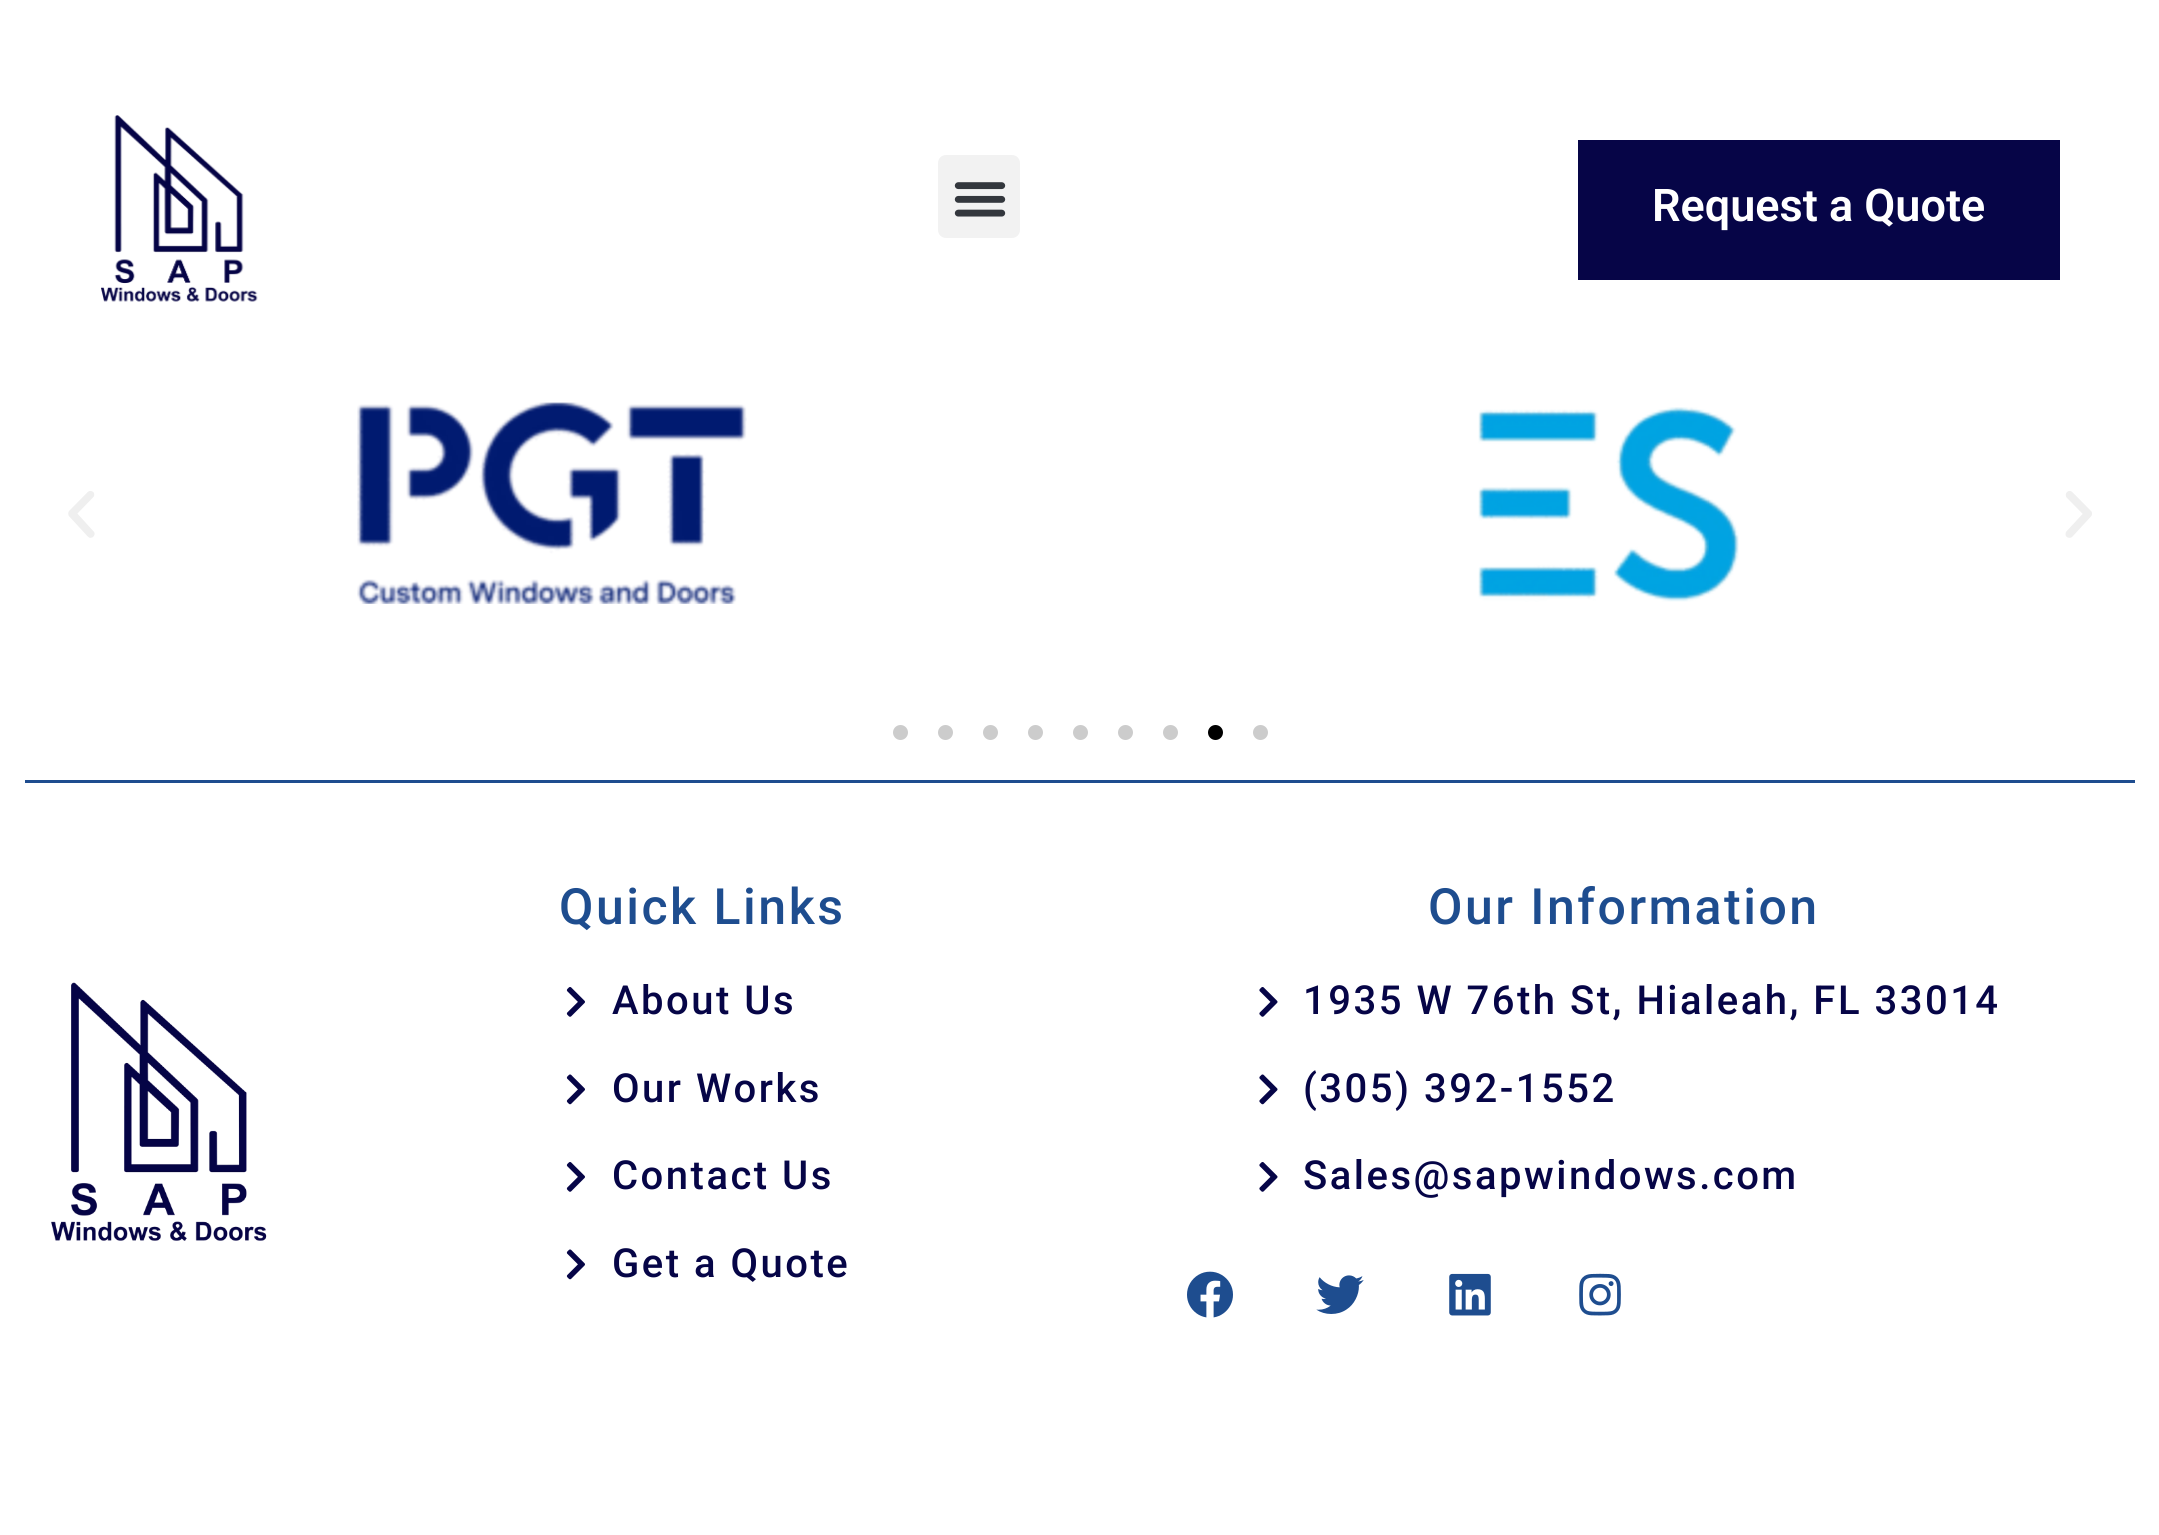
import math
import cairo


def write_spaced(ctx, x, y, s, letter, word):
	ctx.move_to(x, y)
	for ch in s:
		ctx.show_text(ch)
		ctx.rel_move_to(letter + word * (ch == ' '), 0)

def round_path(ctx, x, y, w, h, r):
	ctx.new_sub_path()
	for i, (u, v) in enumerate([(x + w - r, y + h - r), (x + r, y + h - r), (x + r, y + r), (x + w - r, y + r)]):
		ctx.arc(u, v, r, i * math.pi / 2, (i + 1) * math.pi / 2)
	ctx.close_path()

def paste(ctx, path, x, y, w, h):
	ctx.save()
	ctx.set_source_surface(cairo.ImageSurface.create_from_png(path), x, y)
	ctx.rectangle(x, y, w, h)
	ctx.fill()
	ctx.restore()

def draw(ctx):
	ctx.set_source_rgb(1, 1, 1)
	ctx.paint()
	paste(ctx, 'media/1.png', 101, 115, 157, 187)
	ctx.set_source_rgb(0.949, 0.949, 0.949)
	round_path(ctx, 938, 155, 82, 83, 8)
	ctx.fill()
	paste(ctx, 'media/2.png', 954, 182, 52, 35)
	ctx.set_source_rgb(0.024, 0.02, 0.278)
	ctx.rectangle(1578, 140, 482, 140)
	ctx.fill()
	ctx.select_font_face('Roboto SemiBold')
	ctx.set_font_size(45)
	ctx.set_source_rgb(1, 1, 1)
	ctx.move_to(1652, 221)
	ctx.show_text('Request a Quote')
	ctx.set_source_rgb(0.118, 0.302, 0.561)
	ctx.rectangle(25, 780, 2110, 3)
	ctx.fill()
	paste(ctx, 'media/3.png', 68, 491, 27, 47)
	paste(ctx, 'media/4.png', 357, 402, 390, 202)
	paste(ctx, 'media/5.png', 1478, 407, 261, 195)
	paste(ctx, 'media/6.png', 2065, 491, 27, 47)
	ctx.set_source_rgb(0.8, 0.8, 0.8)
	ctx.arc(900.5, 732.5, 7.5, 0, 2 * math.pi)
	ctx.fill()
	ctx.arc(945.5, 732.5, 7.5, 0, 2 * math.pi)
	ctx.fill()
	ctx.arc(990.5, 732.5, 7.5, 0, 2 * math.pi)
	ctx.fill()
	ctx.arc(1035.5, 732.5, 7.5, 0, 2 * math.pi)
	ctx.fill()
	ctx.arc(1080.5, 732.5, 7.5, 0, 2 * math.pi)
	ctx.fill()
	ctx.arc(1125.5, 732.5, 7.5, 0, 2 * math.pi)
	ctx.fill()
	ctx.arc(1170.5, 732.5, 7.5, 0, 2 * math.pi)
	ctx.fill()
	ctx.set_source_rgb(0, 0, 0)
	ctx.arc(1215.5, 732.5, 7.5, 0, 2 * math.pi)
	ctx.fill()
	ctx.set_source_rgb(0.8, 0.8, 0.8)
	ctx.arc(1260.5, 732.5, 7.5, 0, 2 * math.pi)
	ctx.fill()
	paste(ctx, 'media/7.png', 51, 982, 216, 259)
	ctx.select_font_face('Roboto Medium')
	ctx.set_font_size(50)
	ctx.set_source_rgb(0.118, 0.302, 0.561)
	write_spaced(ctx, 559, 924, 'Quick Links', 2.5, 0)
	paste(ctx, 'media/8.png', 566, 987, 19, 30)
	ctx.set_font_size(40)
	ctx.set_source_rgb(0.024, 0.02, 0.278)
	write_spaced(ctx, 612, 1014, 'About Us', 2.5, 0)
	paste(ctx, 'media/9.png', 566, 1074, 19, 31)
	write_spaced(ctx, 612, 1102, 'Our Works', 2.5, 0)
	paste(ctx, 'media/8.png', 566, 1162, 19, 30)
	write_spaced(ctx, 612, 1189, 'Contact Us', 2.5, 0)
	paste(ctx, 'media/9.png', 566, 1249, 19, 31)
	write_spaced(ctx, 612, 1277, 'Get a Quote', 2.5, 0)
	ctx.set_font_size(50)
	ctx.set_source_rgb(0.118, 0.302, 0.561)
	write_spaced(ctx, 1428, 924, 'Our Information', 2.5, 0)
	paste(ctx, 'media/10.png', 1259, 987, 19, 30)
	ctx.set_font_size(40)
	ctx.set_source_rgb(0.024, 0.02, 0.278)
	write_spaced(ctx, 1303, 1014, '1935 W 76th St, Hialeah, FL 33014', 2.5, 0)
	paste(ctx, 'media/11.png', 1259, 1074, 19, 31)
	write_spaced(ctx, 1303, 1102, '(305) 392-1552', 2.5, 0)
	paste(ctx, 'media/10.png', 1259, 1162, 19, 30)
	write_spaced(ctx, 1303, 1189, 'Sales@sapwindows.com', 2.5, 0)
	paste(ctx, 'media/12.png', 1187, 1271, 46, 47)
	paste(ctx, 'media/13.png', 1316, 1275, 48, 39)
	paste(ctx, 'media/14.png', 1449, 1273, 42, 43)
	paste(ctx, 'media/15.png', 1579, 1273, 42, 43)


surface = cairo.ImageSurface(cairo.FORMAT_RGB24, 2159, 1535)
ctx = cairo.Context(surface)
options = cairo.FontOptions()
options.set_hint_metrics(cairo.HINT_METRICS_OFF)
options.set_hint_style(cairo.HINT_STYLE_NONE)
ctx.set_font_options(options)
ctx.set_miter_limit(4)
draw(ctx)
surface.write_to_png('image.png')
